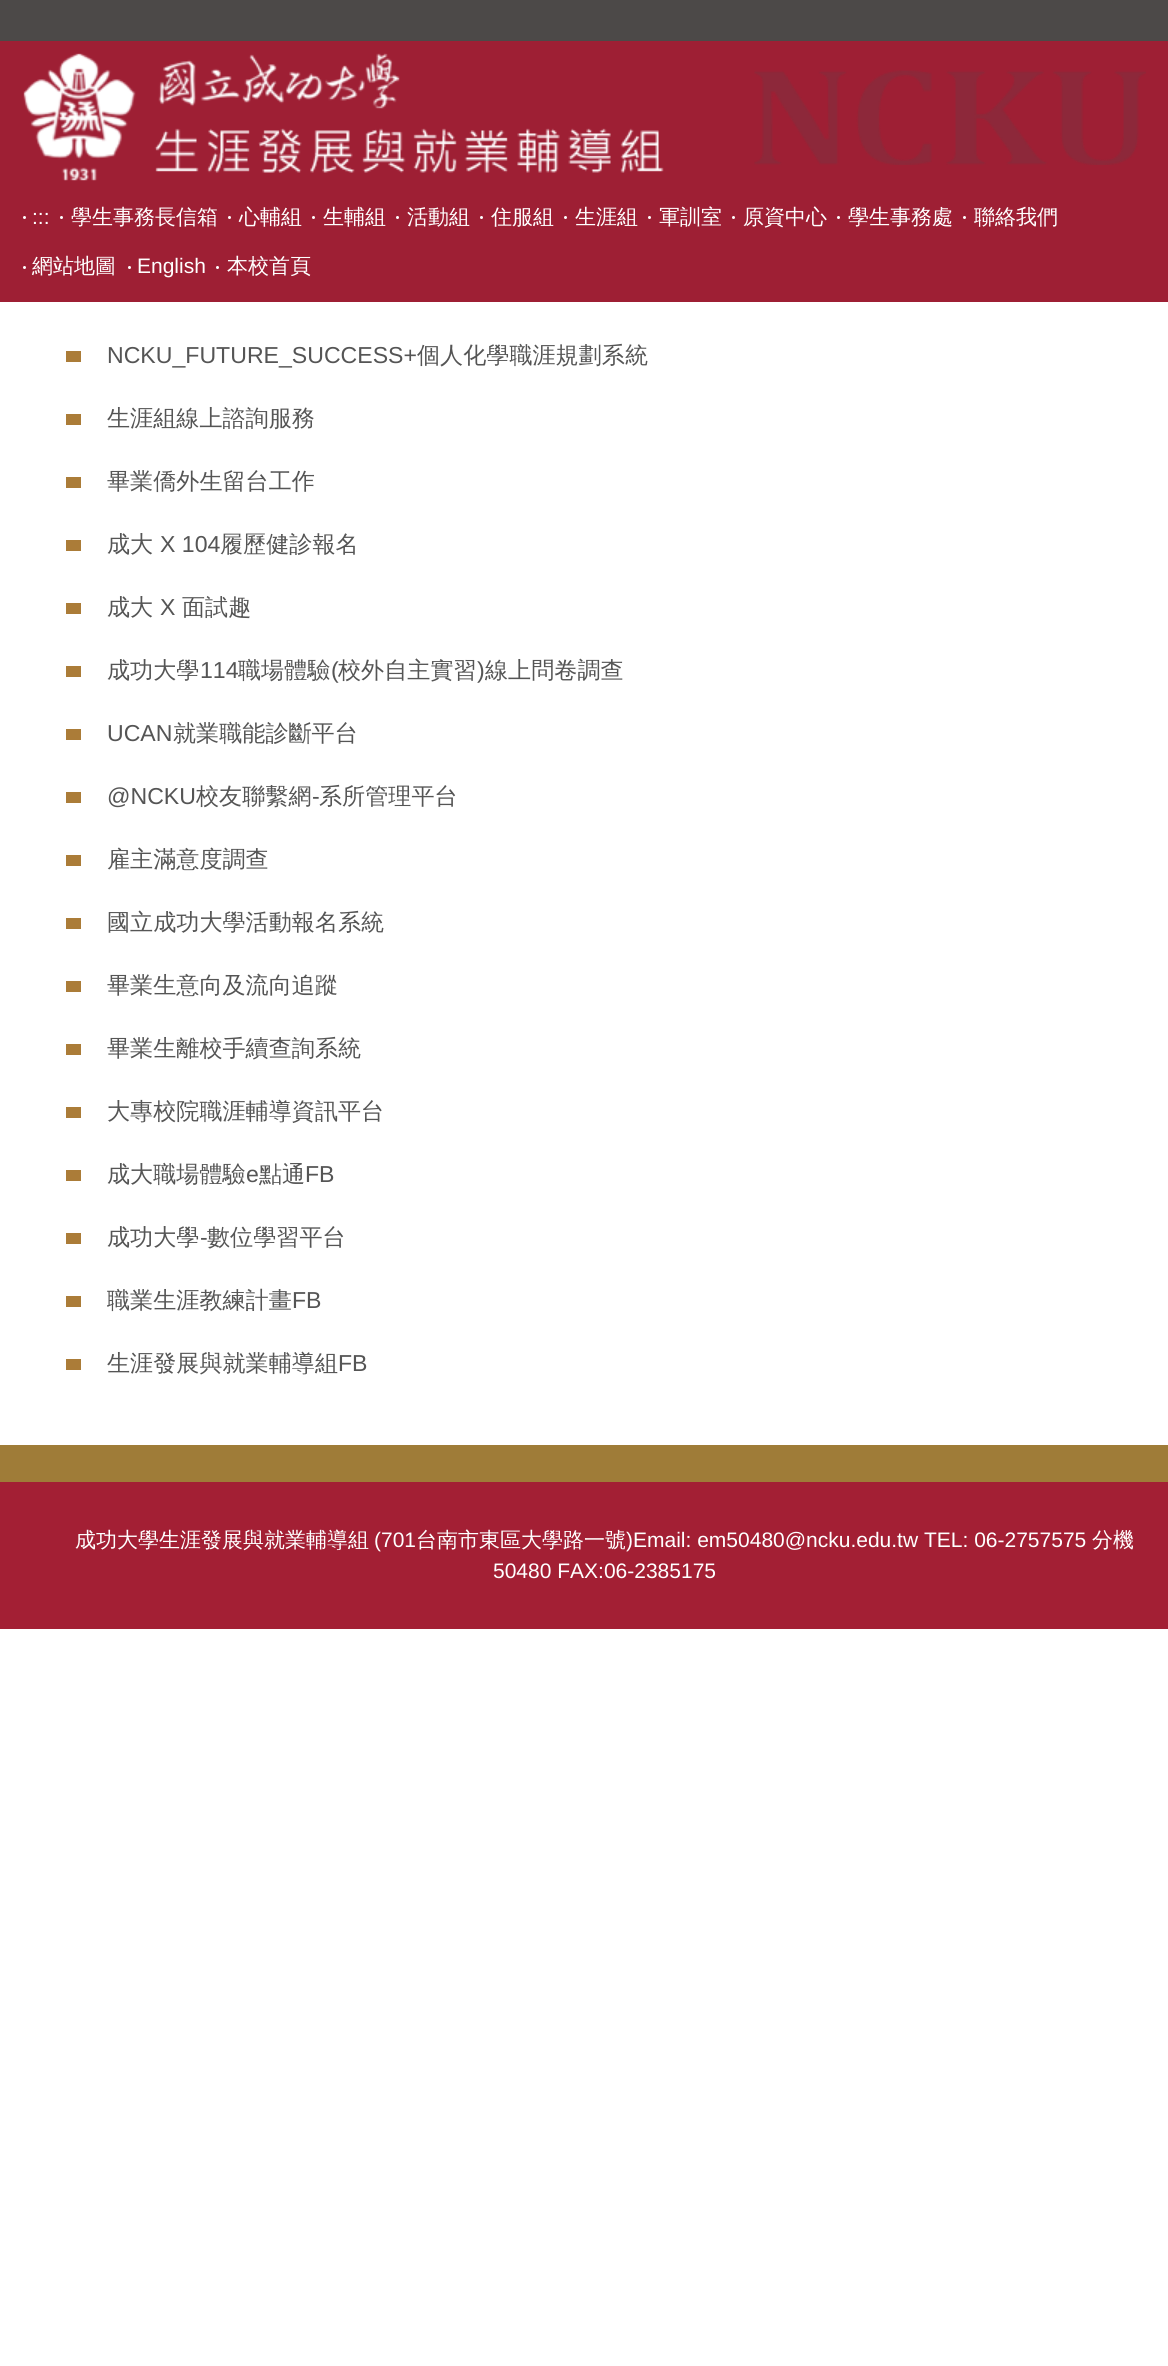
import math
import cairo


def paste(ctx, path, x, y, w, h):
	ctx.save()
	ctx.set_source_surface(cairo.ImageSurface.create_from_png(path), x, y)
	ctx.rectangle(x, y, w, h)
	ctx.fill()
	ctx.restore()

def draw(ctx):
	ctx.set_source_rgb(1, 1, 1)
	ctx.paint()
	ctx.set_source_rgb(0.62, 0.122, 0.204)
	ctx.rectangle(0, 41, 1168, 261)
	ctx.fill()
	ctx.set_source_rgb(0.298, 0.286, 0.282)
	ctx.rectangle(0, 0, 1168, 41)
	ctx.fill()
	paste(ctx, 'media/1.png', 754, 70, 392, 95)
	paste(ctx, 'media/2.png', 23, 53, 641, 128)
	ctx.set_source_rgb(1, 1, 1)
	ctx.arc(24.5, 217.5, 1.5, 0, 2 * math.pi)
	ctx.fill()
	ctx.select_font_face('Liberation Sans')
	ctx.set_font_size(21)
	ctx.move_to(32, 224)
	ctx.show_text(':::')
	ctx.new_path()
	ctx.arc(61.5, 217.5, 1.5, 0, 2 * math.pi)
	ctx.fill()
	ctx.select_font_face('WenQuanYi Zen Hei Medium')
	ctx.move_to(71, 224)
	ctx.show_text('學生事務長信箱')
	ctx.new_path()
	ctx.arc(229.5, 217.5, 1.5, 0, 2 * math.pi)
	ctx.fill()
	ctx.move_to(239, 224)
	ctx.show_text('心輔組')
	ctx.new_path()
	ctx.arc(313.5, 217.5, 1.5, 0, 2 * math.pi)
	ctx.fill()
	ctx.move_to(323, 224)
	ctx.show_text('生輔組')
	ctx.new_path()
	ctx.arc(397.5, 217.5, 1.5, 0, 2 * math.pi)
	ctx.fill()
	ctx.move_to(407, 224)
	ctx.show_text('活動組')
	ctx.new_path()
	ctx.arc(481.5, 217.5, 1.5, 0, 2 * math.pi)
	ctx.fill()
	ctx.move_to(491, 224)
	ctx.show_text('住服組')
	ctx.new_path()
	ctx.arc(565.5, 217.5, 1.5, 0, 2 * math.pi)
	ctx.fill()
	ctx.move_to(575, 224)
	ctx.show_text('生涯組')
	ctx.new_path()
	ctx.arc(649.5, 217.5, 1.5, 0, 2 * math.pi)
	ctx.fill()
	ctx.move_to(659, 224)
	ctx.show_text('軍訓室')
	ctx.new_path()
	ctx.arc(733.5, 217.5, 1.5, 0, 2 * math.pi)
	ctx.fill()
	ctx.move_to(743, 224)
	ctx.show_text('原資中心')
	ctx.new_path()
	ctx.arc(838.5, 217.5, 1.5, 0, 2 * math.pi)
	ctx.fill()
	ctx.move_to(848, 224)
	ctx.show_text('學生事務處')
	ctx.new_path()
	ctx.arc(964.5, 217.5, 1.5, 0, 2 * math.pi)
	ctx.fill()
	ctx.move_to(974, 224)
	ctx.show_text('聯絡我們')
	ctx.new_path()
	ctx.arc(24.5, 267.5, 1.5, 0, 2 * math.pi)
	ctx.fill()
	ctx.move_to(32, 273)
	ctx.show_text('網站地圖')
	ctx.new_path()
	ctx.arc(129.5, 267.5, 1.5, 0, 2 * math.pi)
	ctx.fill()
	ctx.select_font_face('Liberation Sans')
	ctx.move_to(137, 273)
	ctx.show_text('English')
	ctx.new_path()
	ctx.arc(217.5, 267.5, 1.5, 0, 2 * math.pi)
	ctx.fill()
	ctx.select_font_face('WenQuanYi Zen Hei Medium')
	ctx.move_to(227, 273)
	ctx.show_text('本校首頁')
	ctx.set_source_rgb(0.671, 0.486, 0.22)
	ctx.rectangle(66, 351, 15, 11)
	ctx.fill()
	ctx.select_font_face('Liberation Sans')
	ctx.set_font_size(23.1)
	ctx.set_source_rgb(0.333, 0.333, 0.333)
	ctx.move_to(107, 363)
	ctx.show_text('NCKU_FUTURE_SUCCESS+')
	ctx.select_font_face('WenQuanYi Zen Hei Medium')
	ctx.move_to(417, 363)
	ctx.show_text('個人化學職涯規劃系統')
	ctx.set_source_rgb(0.671, 0.486, 0.22)
	ctx.rectangle(66, 414, 15, 11)
	ctx.fill()
	ctx.set_source_rgb(0.333, 0.333, 0.333)
	ctx.move_to(107, 426)
	ctx.show_text('生涯組線上諮詢服務')
	ctx.set_source_rgb(0.671, 0.486, 0.22)
	ctx.rectangle(66, 477, 15, 11)
	ctx.fill()
	ctx.set_source_rgb(0.333, 0.333, 0.333)
	ctx.move_to(107, 489)
	ctx.show_text('畢業僑外生留台工作')
	ctx.set_source_rgb(0.671, 0.486, 0.22)
	ctx.rectangle(66, 540, 15, 11)
	ctx.fill()
	ctx.set_source_rgb(0.333, 0.333, 0.333)
	ctx.move_to(107, 552)
	ctx.show_text('成大')
	ctx.select_font_face('Liberation Sans')
	ctx.move_to(160, 552)
	ctx.show_text('X 104')
	ctx.select_font_face('WenQuanYi Zen Hei Medium')
	ctx.move_to(220, 552)
	ctx.show_text('履歷健診報名')
	ctx.set_source_rgb(0.671, 0.486, 0.22)
	ctx.rectangle(66, 603, 15, 11)
	ctx.fill()
	ctx.set_source_rgb(0.333, 0.333, 0.333)
	ctx.move_to(107, 615)
	ctx.show_text('成大')
	ctx.select_font_face('Liberation Sans')
	ctx.move_to(160, 615)
	ctx.show_text('X')
	ctx.select_font_face('WenQuanYi Zen Hei Medium')
	ctx.move_to(182, 615)
	ctx.show_text('面試趣')
	ctx.set_source_rgb(0.671, 0.486, 0.22)
	ctx.rectangle(66, 666, 15, 11)
	ctx.fill()
	ctx.set_source_rgb(0.333, 0.333, 0.333)
	ctx.move_to(107, 678)
	ctx.show_text('成功大學')
	ctx.select_font_face('Liberation Sans')
	ctx.move_to(200, 678)
	ctx.show_text('114')
	ctx.select_font_face('WenQuanYi Zen Hei Medium')
	ctx.move_to(238, 678)
	ctx.show_text('職場體驗')
	ctx.select_font_face('Liberation Sans')
	ctx.move_to(331, 678)
	ctx.show_text('(')
	ctx.select_font_face('WenQuanYi Zen Hei Medium')
	ctx.move_to(338, 678)
	ctx.show_text('校外自主實習')
	ctx.select_font_face('Liberation Sans')
	ctx.move_to(477, 678)
	ctx.show_text(')')
	ctx.select_font_face('WenQuanYi Zen Hei Medium')
	ctx.move_to(485, 678)
	ctx.show_text('線上問卷調查')
	ctx.set_source_rgb(0.671, 0.486, 0.22)
	ctx.rectangle(66, 729, 15, 11)
	ctx.fill()
	ctx.select_font_face('Liberation Sans')
	ctx.set_source_rgb(0.333, 0.333, 0.333)
	ctx.move_to(107, 741)
	ctx.show_text('UCAN')
	ctx.select_font_face('WenQuanYi Zen Hei Medium')
	ctx.move_to(173, 741)
	ctx.show_text('就業職能診斷平台')
	ctx.set_source_rgb(0.671, 0.486, 0.22)
	ctx.rectangle(66, 792, 15, 11)
	ctx.fill()
	ctx.select_font_face('Liberation Sans')
	ctx.set_source_rgb(0.333, 0.333, 0.333)
	ctx.move_to(107, 804)
	ctx.show_text('@NCKU')
	ctx.select_font_face('WenQuanYi Zen Hei Medium')
	ctx.move_to(196, 804)
	ctx.show_text('校友聯繫網')
	ctx.select_font_face('Liberation Sans')
	ctx.move_to(312, 804)
	ctx.show_text('-')
	ctx.select_font_face('WenQuanYi Zen Hei Medium')
	ctx.move_to(319, 804)
	ctx.show_text('系所管理平台')
	ctx.set_source_rgb(0.671, 0.486, 0.22)
	ctx.rectangle(66, 855, 15, 11)
	ctx.fill()
	ctx.set_source_rgb(0.333, 0.333, 0.333)
	ctx.move_to(107, 867)
	ctx.show_text('雇主滿意度調查')
	ctx.set_source_rgb(0.671, 0.486, 0.22)
	ctx.rectangle(66, 918, 15, 11)
	ctx.fill()
	ctx.set_source_rgb(0.333, 0.333, 0.333)
	ctx.move_to(107, 930)
	ctx.show_text('國立成功大學活動報名系統')
	ctx.set_source_rgb(0.671, 0.486, 0.22)
	ctx.rectangle(66, 981, 15, 11)
	ctx.fill()
	ctx.set_source_rgb(0.333, 0.333, 0.333)
	ctx.move_to(107, 993)
	ctx.show_text('畢業生意向及流向追蹤')
	ctx.set_source_rgb(0.671, 0.486, 0.22)
	ctx.rectangle(66, 1044, 15, 11)
	ctx.fill()
	ctx.set_source_rgb(0.333, 0.333, 0.333)
	ctx.move_to(107, 1056)
	ctx.show_text('畢業生離校手續查詢系統')
	ctx.set_source_rgb(0.671, 0.486, 0.22)
	ctx.rectangle(66, 1107, 15, 11)
	ctx.fill()
	ctx.set_source_rgb(0.333, 0.333, 0.333)
	ctx.move_to(107, 1119)
	ctx.show_text('大專校院職涯輔導資訊平台')
	ctx.set_source_rgb(0.671, 0.486, 0.22)
	ctx.rectangle(66, 1170, 15, 11)
	ctx.fill()
	ctx.set_source_rgb(0.333, 0.333, 0.333)
	ctx.move_to(107, 1182)
	ctx.show_text('成大職場體驗')
	ctx.select_font_face('Liberation Sans')
	ctx.move_to(246, 1182)
	ctx.show_text('e')
	ctx.select_font_face('WenQuanYi Zen Hei Medium')
	ctx.move_to(259, 1182)
	ctx.show_text('點通')
	ctx.select_font_face('Liberation Sans')
	ctx.move_to(305, 1182)
	ctx.show_text('FB')
	ctx.set_source_rgb(0.671, 0.486, 0.22)
	ctx.rectangle(66, 1233, 15, 11)
	ctx.fill()
	ctx.select_font_face('WenQuanYi Zen Hei Medium')
	ctx.set_source_rgb(0.333, 0.333, 0.333)
	ctx.move_to(107, 1245)
	ctx.show_text('成功大學')
	ctx.select_font_face('Liberation Sans')
	ctx.move_to(200, 1245)
	ctx.show_text('-')
	ctx.select_font_face('WenQuanYi Zen Hei Medium')
	ctx.move_to(207, 1245)
	ctx.show_text('數位學習平台')
	ctx.set_source_rgb(0.671, 0.486, 0.22)
	ctx.rectangle(66, 1296, 15, 11)
	ctx.fill()
	ctx.set_source_rgb(0.333, 0.333, 0.333)
	ctx.move_to(107, 1308)
	ctx.show_text('職業生涯教練計畫')
	ctx.select_font_face('Liberation Sans')
	ctx.move_to(292, 1308)
	ctx.show_text('FB')
	ctx.set_source_rgb(0.671, 0.486, 0.22)
	ctx.rectangle(66, 1359, 15, 11)
	ctx.fill()
	ctx.select_font_face('WenQuanYi Zen Hei Medium')
	ctx.set_source_rgb(0.333, 0.333, 0.333)
	ctx.move_to(107, 1371)
	ctx.show_text('生涯發展與就業輔導組')
	ctx.select_font_face('Liberation Sans')
	ctx.move_to(338, 1371)
	ctx.show_text('FB')
	ctx.set_source_rgb(0.639, 0.122, 0.204)
	ctx.rectangle(0, 1482, 1168, 147)
	ctx.fill()
	ctx.set_source_rgb(0.624, 0.486, 0.22)
	ctx.rectangle(0, 1445, 1168, 37)
	ctx.fill()
	ctx.select_font_face('WenQuanYi Zen Hei Medium')
	ctx.set_font_size(21)
	ctx.set_source_rgb(1, 1, 1)
	ctx.move_to(75, 1547)
	ctx.show_text('成功大學生涯發展與就業輔導組')
	ctx.select_font_face('Liberation Sans')
	ctx.move_to(374, 1547)
	ctx.show_text('(701')
	ctx.select_font_face('WenQuanYi Zen Hei Medium')
	ctx.move_to(416, 1547)
	ctx.show_text('台南市東區大學路一號')
	ctx.select_font_face('Liberation Sans')
	ctx.move_to(626, 1547)
	ctx.show_text(')Email: em50480@ncku.edu.tw TEL: 06-2757575')
	ctx.select_font_face('WenQuanYi Zen Hei Medium')
	ctx.move_to(1092, 1547)
	ctx.show_text('分機')
	ctx.select_font_face('Liberation Sans')
	ctx.move_to(493, 1578)
	ctx.show_text('50480 FAX:06-2385175')


surface = cairo.ImageSurface(cairo.FORMAT_RGB24, 1168, 2366)
ctx = cairo.Context(surface)
options = cairo.FontOptions()
options.set_hint_metrics(cairo.HINT_METRICS_OFF)
options.set_hint_style(cairo.HINT_STYLE_NONE)
ctx.set_font_options(options)
ctx.set_miter_limit(4)
draw(ctx)
surface.write_to_png('image.png')
